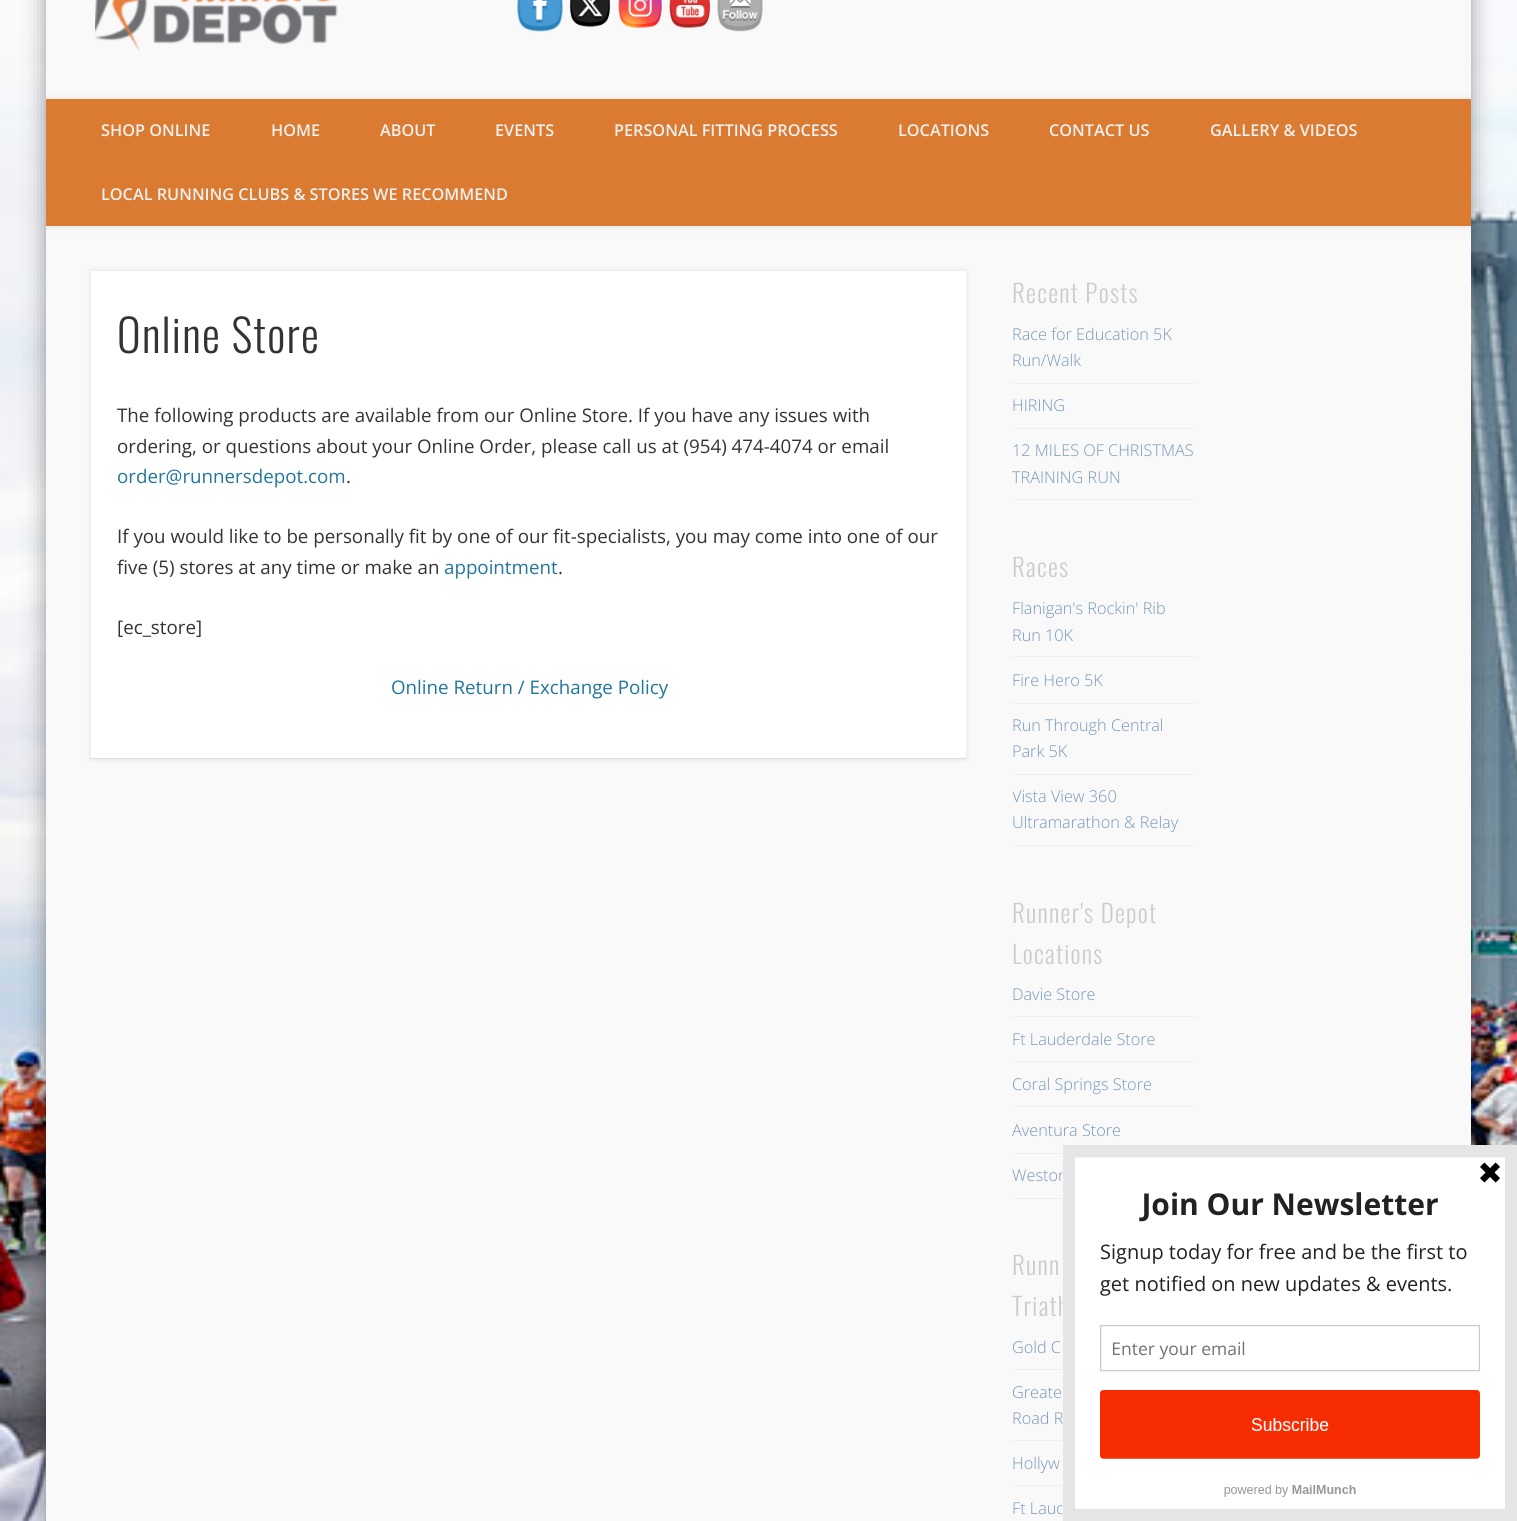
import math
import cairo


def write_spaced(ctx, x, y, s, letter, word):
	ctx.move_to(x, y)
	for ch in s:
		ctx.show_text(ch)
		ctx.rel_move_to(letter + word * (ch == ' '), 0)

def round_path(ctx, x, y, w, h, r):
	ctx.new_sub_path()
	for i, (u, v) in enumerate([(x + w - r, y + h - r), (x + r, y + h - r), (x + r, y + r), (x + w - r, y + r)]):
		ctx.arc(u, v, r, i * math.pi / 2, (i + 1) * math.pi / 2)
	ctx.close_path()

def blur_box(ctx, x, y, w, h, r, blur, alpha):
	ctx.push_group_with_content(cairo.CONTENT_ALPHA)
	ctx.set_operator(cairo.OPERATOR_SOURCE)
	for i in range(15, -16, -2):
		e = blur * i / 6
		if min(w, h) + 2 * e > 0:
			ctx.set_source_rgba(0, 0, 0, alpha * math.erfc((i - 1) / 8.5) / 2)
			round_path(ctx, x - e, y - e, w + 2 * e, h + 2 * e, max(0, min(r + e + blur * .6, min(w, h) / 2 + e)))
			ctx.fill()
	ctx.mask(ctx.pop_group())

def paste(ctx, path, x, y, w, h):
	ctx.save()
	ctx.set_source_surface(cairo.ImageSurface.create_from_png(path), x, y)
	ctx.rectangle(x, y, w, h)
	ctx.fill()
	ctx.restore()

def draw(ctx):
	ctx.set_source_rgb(1, 1, 1)
	ctx.paint()
	paste(ctx, 'media/1.png', 0, 0, 1517, 1521)
	ctx.set_source_rgb(0, 0, 0)
	blur_box(ctx, 46, -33, 1425, 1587, 0, 11, 0.4)
	ctx.set_source_rgb(0.973, 0.973, 0.973)
	ctx.rectangle(46, 0, 1425, 1521)
	ctx.fill()
	paste(ctx, 'media/2.png', 95, 0, 243, 52)
	paste(ctx, 'media/3.png', 517, 0, 46, 32)
	paste(ctx, 'media/4.png', 569, 0, 42, 27)
	paste(ctx, 'media/5.png', 618, 0, 44, 28)
	paste(ctx, 'media/6.png', 669, 0, 42, 28)
	paste(ctx, 'media/7.png', 717, 0, 46, 32)
	ctx.save()
	ctx.rectangle(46, 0, 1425, 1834)
	ctx.clip()
	ctx.set_source_rgb(0, 0, 0)
	blur_box(ctx, 46, 99, 1425, 127, 0, 4.5, 0.1)
	ctx.restore()
	ctx.set_source_rgb(0.859, 0.482, 0.196)
	ctx.rectangle(46, 99, 1425, 127)
	ctx.fill()
	ctx.select_font_face('Open Sans SemiBold')
	ctx.set_font_size(16.25)
	ctx.set_source_rgb(0.941, 0.941, 0.941)
	for x, y, s in [
		(101, 136, 'SHOP ONLINE'),
		(271, 136, 'HOME'),
		(380, 136, 'ABOUT'),
		(495, 136, 'EVENTS'),
		(614, 136, 'PERSONAL FITTING PROCESS'),
		(898, 136, 'LOCATIONS'),
		(1049, 136, 'CONTACT US'),
		(1210, 136, 'GALLERY & VIDEOS'),
		(101, 200, 'LOCAL RUNNING CLUBS & STORES WE RECOMMEND'),
	]:
		ctx.move_to(x, y)
		ctx.show_text(s)
	ctx.set_source_rgb(0, 0, 0)
	blur_box(ctx, 91, 271, 875, 488, 0, 3, 0.1)
	ctx.set_source_rgb(1, 1, 1)
	ctx.rectangle(91, 271, 875, 487)
	ctx.fill()
	ctx.set_source_rgb(0.871, 0.871, 0.871)
	ctx.rectangle(91, 758, 875, 1)
	ctx.fill()
	ctx.select_font_face('Oswald Light')
	ctx.set_font_size(45)
	ctx.set_source_rgb(0.2, 0.2, 0.2)
	write_spaced(ctx, 117, 353, 'Online Store', 1.25, 0)
	ctx.select_font_face('Open Sans')
	ctx.set_font_size(18.75)
	ctx.move_to(117, 422)
	ctx.show_text('The following products are available from our Online Store. If you have any issues with')
	ctx.move_to(117, 453)
	ctx.show_text('ordering, or questions about your Online Order, please call us at (954) 474-4074 or email')
	ctx.set_source_rgb(0.129, 0.459, 0.608)
	ctx.move_to(117, 483)
	ctx.show_text('order@runnersdepot.com')
	ctx.set_source_rgb(0.2, 0.2, 0.2)
	for x, y, s in [
		(346, 483, '.'),
		(117, 543, 'If you would like to be personally fit by one of our fit-specialists, you may come into one of our'),
		(117, 574, 'five (5) stores at any time or make an'),
	]:
		ctx.move_to(x, y)
		ctx.show_text(s)
	ctx.set_source_rgb(0.129, 0.459, 0.608)
	ctx.move_to(444, 574)
	ctx.show_text('appointment')
	ctx.set_source_rgb(0.2, 0.2, 0.2)
	ctx.move_to(558, 574)
	ctx.show_text('.')
	ctx.move_to(117, 634)
	ctx.show_text('[ec_store]')
	ctx.set_source_rgb(0.129, 0.459, 0.608)
	ctx.move_to(391, 694)
	ctx.show_text('Online Return / Exchange Policy')
	ctx.select_font_face('Oswald Light')
	ctx.set_font_size(25)
	ctx.set_source_rgb(0.8, 0.8, 0.8)
	write_spaced(ctx, 1012, 303, 'Recent Posts', 1.25, 0)
	ctx.set_source_rgb(0.933, 0.933, 0.933)
	ctx.rectangle(1013, 383, 182, 1)
	ctx.fill()
	ctx.select_font_face('Open Sans Light')
	ctx.set_font_size(16.25)
	ctx.set_source_rgb(0.459, 0.592, 0.725)
	ctx.move_to(1012, 340)
	ctx.show_text('Race for Education 5K')
	ctx.move_to(1012, 366)
	ctx.show_text('Run/Walk')
	ctx.set_source_rgb(0.933, 0.933, 0.933)
	ctx.rectangle(1013, 428, 182, 1)
	ctx.fill()
	ctx.set_source_rgb(0.459, 0.592, 0.725)
	ctx.move_to(1012, 411)
	ctx.show_text('HIRING')
	ctx.set_source_rgb(0.933, 0.933, 0.933)
	ctx.rectangle(1013, 499, 182, 1)
	ctx.fill()
	ctx.set_source_rgb(0.459, 0.592, 0.725)
	ctx.move_to(1012, 456)
	ctx.show_text('12 MILES OF CHRISTMAS')
	ctx.move_to(1012, 483)
	ctx.show_text('TRAINING RUN')
	ctx.select_font_face('Oswald Light')
	ctx.set_font_size(25)
	ctx.set_source_rgb(0.8, 0.8, 0.8)
	write_spaced(ctx, 1012, 577, 'Races', 1.25, 0)
	ctx.set_source_rgb(0.933, 0.933, 0.933)
	ctx.rectangle(1013, 656, 182, 1)
	ctx.fill()
	ctx.select_font_face('Open Sans Light')
	ctx.set_font_size(16.25)
	ctx.set_source_rgb(0.459, 0.592, 0.725)
	ctx.move_to(1012, 614)
	ctx.show_text('Flanigan\'s Rockin\' Rib')
	ctx.move_to(1012, 641)
	ctx.show_text('Run 10K')
	ctx.set_source_rgb(0.933, 0.933, 0.933)
	ctx.rectangle(1013, 703, 182, 1)
	ctx.fill()
	ctx.set_source_rgb(0.459, 0.592, 0.725)
	ctx.move_to(1012, 686)
	ctx.show_text('Fire Hero 5K')
	ctx.set_source_rgb(0.933, 0.933, 0.933)
	ctx.rectangle(1013, 774, 182, 1)
	ctx.fill()
	ctx.set_source_rgb(0.459, 0.592, 0.725)
	ctx.move_to(1012, 731)
	ctx.show_text('Run Through Central')
	ctx.move_to(1012, 757)
	ctx.show_text('Park 5K')
	ctx.set_source_rgb(0.933, 0.933, 0.933)
	ctx.rectangle(1013, 845, 182, 1)
	ctx.fill()
	ctx.save()
	ctx.rectangle(1013, 586, 182, 260)
	ctx.clip()
	ctx.set_source_rgb(0.459, 0.592, 0.725)
	ctx.move_to(1012, 802)
	ctx.show_text('Vista View 360')
	ctx.restore()
	ctx.set_source_rgb(0.459, 0.592, 0.725)
	ctx.move_to(1012, 828)
	ctx.show_text('Ultramarathon & Relay')
	ctx.select_font_face('Oswald Light')
	ctx.set_font_size(25)
	ctx.set_source_rgb(0.8, 0.8, 0.8)
	write_spaced(ctx, 1012, 923, 'Runner\'s Depot', 1.25, 0)
	write_spaced(ctx, 1012, 964, 'Locations', 1.25, 0)
	ctx.set_source_rgb(0.933, 0.933, 0.933)
	ctx.rectangle(1013, 1016, 182, 1)
	ctx.fill()
	ctx.select_font_face('Open Sans Light')
	ctx.set_font_size(16.25)
	ctx.set_source_rgb(0.459, 0.592, 0.725)
	ctx.move_to(1012, 1000)
	ctx.show_text('Davie Store')
	ctx.set_source_rgb(0.933, 0.933, 0.933)
	ctx.rectangle(1013, 1061, 182, 1)
	ctx.fill()
	ctx.set_source_rgb(0.459, 0.592, 0.725)
	ctx.move_to(1012, 1045)
	ctx.show_text('Ft Lauderdale Store')
	ctx.set_source_rgb(0.933, 0.933, 0.933)
	ctx.rectangle(1013, 1106, 182, 1)
	ctx.fill()
	ctx.set_source_rgb(0.459, 0.592, 0.725)
	ctx.move_to(1012, 1090)
	ctx.show_text('Coral Springs Store')
	ctx.set_source_rgb(0.933, 0.933, 0.933)
	ctx.rectangle(1013, 1153, 50, 1)
	ctx.fill()
	ctx.set_source_rgb(0.459, 0.592, 0.725)
	ctx.move_to(1012, 1136)
	ctx.show_text('Aventura Store')
	ctx.set_source_rgb(0.933, 0.933, 0.933)
	ctx.rectangle(1013, 1198, 50, 1)
	ctx.fill()
	ctx.set_source_rgb(0.459, 0.592, 0.725)
	ctx.move_to(1012, 1181)
	ctx.show_text('Weston')
	ctx.select_font_face('Oswald Light')
	ctx.set_font_size(25)
	ctx.set_source_rgb(0.8, 0.8, 0.8)
	write_spaced(ctx, 1012, 1275, 'Runn', 1.25, 0)
	write_spaced(ctx, 1012, 1316, 'Triath', 1.25, 0)
	ctx.set_source_rgb(0.933, 0.933, 0.933)
	ctx.rectangle(1013, 1369, 50, 1)
	ctx.fill()
	ctx.select_font_face('Open Sans Light')
	ctx.set_font_size(16.25)
	ctx.set_source_rgb(0.459, 0.592, 0.725)
	ctx.move_to(1012, 1353)
	ctx.show_text('Gold C')
	ctx.set_source_rgb(0.933, 0.933, 0.933)
	ctx.rectangle(1013, 1440, 50, 1)
	ctx.fill()
	ctx.set_source_rgb(0.459, 0.592, 0.725)
	ctx.move_to(1012, 1398)
	ctx.show_text('Greate')
	ctx.move_to(1012, 1424)
	ctx.show_text('Road R')
	ctx.set_source_rgb(0.933, 0.933, 0.933)
	ctx.rectangle(1013, 1485, 50, 1)
	ctx.fill()
	ctx.set_source_rgb(0.459, 0.592, 0.725)
	ctx.move_to(1012, 1469)
	ctx.show_text('Hollyw')
	ctx.move_to(1012, 1514)
	ctx.show_text('Ft Laud')
	paste(ctx, 'media/8.png', 1062, 1145, 455, 376)


surface = cairo.ImageSurface(cairo.FORMAT_RGB24, 1517, 1521)
ctx = cairo.Context(surface)
options = cairo.FontOptions()
options.set_hint_metrics(cairo.HINT_METRICS_OFF)
options.set_hint_style(cairo.HINT_STYLE_NONE)
ctx.set_font_options(options)
ctx.set_miter_limit(4)
draw(ctx)
surface.write_to_png('image.png')
